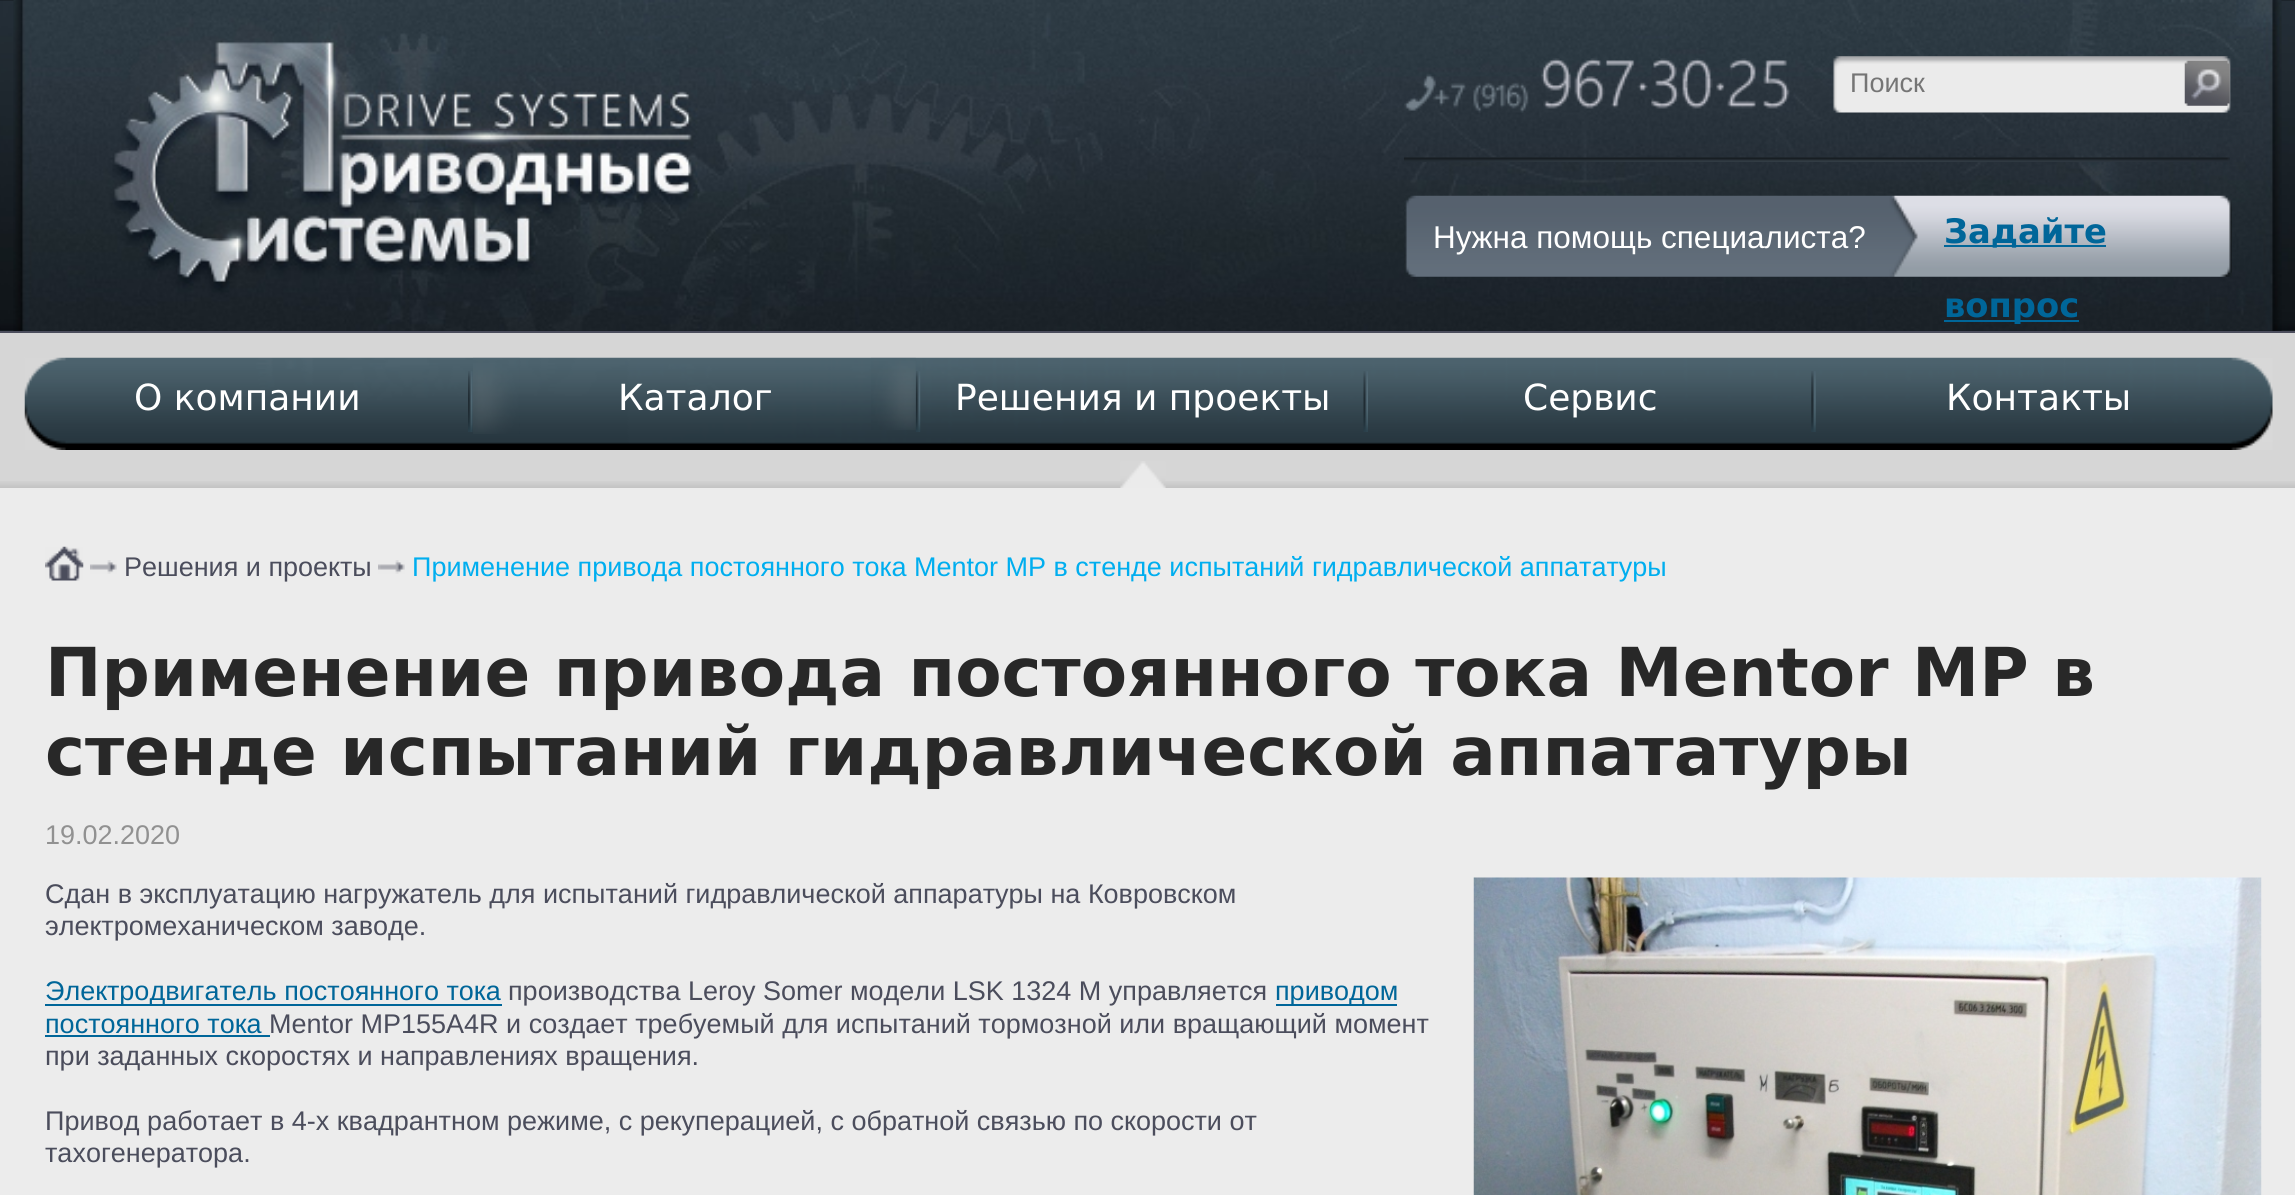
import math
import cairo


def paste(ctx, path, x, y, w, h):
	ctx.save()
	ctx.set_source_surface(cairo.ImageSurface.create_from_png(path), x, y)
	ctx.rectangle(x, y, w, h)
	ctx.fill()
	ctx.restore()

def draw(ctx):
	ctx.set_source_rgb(0.839, 0.839, 0.839)
	ctx.paint()
	paste(ctx, 'media/1.png', 0, 0, 2295, 331)
	ctx.set_source_rgb(0.294, 0.302, 0.361)
	ctx.rectangle(0, 331, 2295, 2)
	ctx.fill()
	paste(ctx, 'media/2.png', 13, 0, 2269, 331)
	paste(ctx, 'media/3.png', 1404, 58, 386, 55)
	paste(ctx, 'media/4.png', 1832, 56, 399, 57)
	ctx.select_font_face('Liberation Sans')
	ctx.set_font_size(27)
	ctx.set_source_rgb(0.459, 0.459, 0.459)
	ctx.move_to(1850, 92)
	ctx.show_text('Поиск')
	paste(ctx, 'media/5.png', 2184, 60, 46, 46)
	paste(ctx, 'media/6.png', 1404, 157, 826, 5)
	paste(ctx, 'media/7.png', 1404, 195, 828, 82)
	ctx.set_font_size(31.5)
	ctx.set_source_rgb(1, 1, 1)
	ctx.move_to(1433, 248)
	ctx.show_text('Нужна помощь специалиста?')
	ctx.set_source_rgb(0, 0.4, 0.6)
	ctx.rectangle(1944, 245, 162, 2)
	ctx.fill()
	ctx.select_font_face('DejaVu Sans', cairo.FONT_SLANT_NORMAL, cairo.FONT_WEIGHT_BOLD)
	ctx.set_font_size(33.75)
	ctx.move_to(1944, 243)
	ctx.show_text('Задайте')
	ctx.rectangle(1944, 320, 135, 2)
	ctx.fill()
	ctx.move_to(1944, 317)
	ctx.show_text('вопрос')
	paste(ctx, 'media/8.png', 0, 481, 2295, 7)
	paste(ctx, 'media/9.png', 24, 357, 2249, 93)
	paste(ctx, 'media/10.png', 468, 371, 5, 61)
	ctx.select_font_face('DejaVu Sans')
	ctx.set_font_size(36)
	ctx.set_source_rgb(1, 1, 1)
	ctx.move_to(134, 410)
	ctx.show_text('О компании')
	paste(ctx, 'media/11.png', 915, 371, 6, 61)
	paste(ctx, 'media/12.png', 473, 357, 47, 77)
	paste(ctx, 'media/13.png', 871, 357, 45, 73)
	ctx.move_to(618, 410)
	ctx.show_text('Каталог')
	paste(ctx, 'media/14.png', 1120, 461, 46, 27)
	paste(ctx, 'media/15.png', 1363, 371, 5, 61)
	ctx.move_to(955, 410)
	ctx.show_text('Решения и проекты')
	paste(ctx, 'media/16.png', 1811, 371, 5, 61)
	ctx.move_to(1523, 410)
	ctx.show_text('Сервис')
	ctx.move_to(1946, 410)
	ctx.show_text('Контакты')
	ctx.set_source_rgb(0.922, 0.922, 0.922)
	ctx.rectangle(0, 488, 2295, 707)
	ctx.fill()
	paste(ctx, 'media/17.png', 45, 546, 39, 35)
	paste(ctx, 'media/18.png', 90, 560, 27, 14)
	ctx.select_font_face('Liberation Sans')
	ctx.set_font_size(27)
	ctx.set_source_rgb(0.294, 0.302, 0.361)
	ctx.move_to(124, 576)
	ctx.show_text('Решения и проекты')
	paste(ctx, 'media/18.png', 378, 560, 27, 14)
	ctx.set_source_rgb(0, 0.682, 0.937)
	ctx.move_to(412, 576)
	ctx.show_text('Применение привода постоянного тока Mentor MP в стенде испытаний гидравлической аппататуры')
	ctx.select_font_face('DejaVu Sans', cairo.FONT_SLANT_NORMAL, cairo.FONT_WEIGHT_BOLD)
	ctx.set_font_size(67.5)
	ctx.set_source_rgb(0.157, 0.157, 0.157)
	ctx.move_to(45, 696)
	ctx.show_text('Применение привода постоянного тока Mentor MP в')
	ctx.move_to(45, 775)
	ctx.show_text('стенде испытаний гидравлической аппататуры')
	ctx.select_font_face('Liberation Sans')
	ctx.set_font_size(27)
	ctx.set_source_rgb(0.569, 0.569, 0.569)
	ctx.move_to(45, 844)
	ctx.show_text('19.02.2020')
	ctx.set_source_rgb(0.294, 0.302, 0.361)
	ctx.move_to(45, 903)
	ctx.show_text('Сдан в эксплуатацию нагружатель для испытаний гидравлической аппаратуры на Ковровском')
	paste(ctx, 'media/19.png', 1473, 877, 789, 318)
	ctx.move_to(45, 935)
	ctx.show_text('электромеханическом заводе.')
	ctx.set_source_rgb(0, 0.4, 0.6)
	ctx.rectangle(45, 1004, 457, 2)
	ctx.fill()
	ctx.move_to(45, 1000)
	ctx.show_text('Электродвигатель постоянного тока')
	ctx.set_source_rgb(0.294, 0.302, 0.361)
	ctx.move_to(508, 1000)
	ctx.show_text('производства Leroy Somer модели LSK 1324 M управляется')
	ctx.set_source_rgb(0, 0.4, 0.6)
	ctx.rectangle(1276, 1004, 121, 2)
	ctx.fill()
	ctx.move_to(1275, 1000)
	ctx.show_text('приводом')
	ctx.move_to(45, 1033)
	ctx.show_text('постоянного тока')
	ctx.rectangle(45, 1035, 225, 2)
	ctx.fill()
	ctx.set_source_rgb(0.294, 0.302, 0.361)
	for x, y, s in [
		(269, 1033, 'Mentor MP155A4R и создает требуемый для испытаний тормозной или вращающий момент'),
		(45, 1065, 'при заданных скоростях и направлениях вращения.'),
		(45, 1130, 'Привод работает в 4-х квадрантном режиме, с рекуперацией, с обратной связью по скорости от'),
		(45, 1162, 'тахогенератора.'),
	]:
		ctx.move_to(x, y)
		ctx.show_text(s)


surface = cairo.ImageSurface(cairo.FORMAT_RGB24, 2295, 1195)
ctx = cairo.Context(surface)
options = cairo.FontOptions()
options.set_hint_metrics(cairo.HINT_METRICS_OFF)
options.set_hint_style(cairo.HINT_STYLE_NONE)
ctx.set_font_options(options)
ctx.set_miter_limit(4)
draw(ctx)
surface.write_to_png('image.png')
